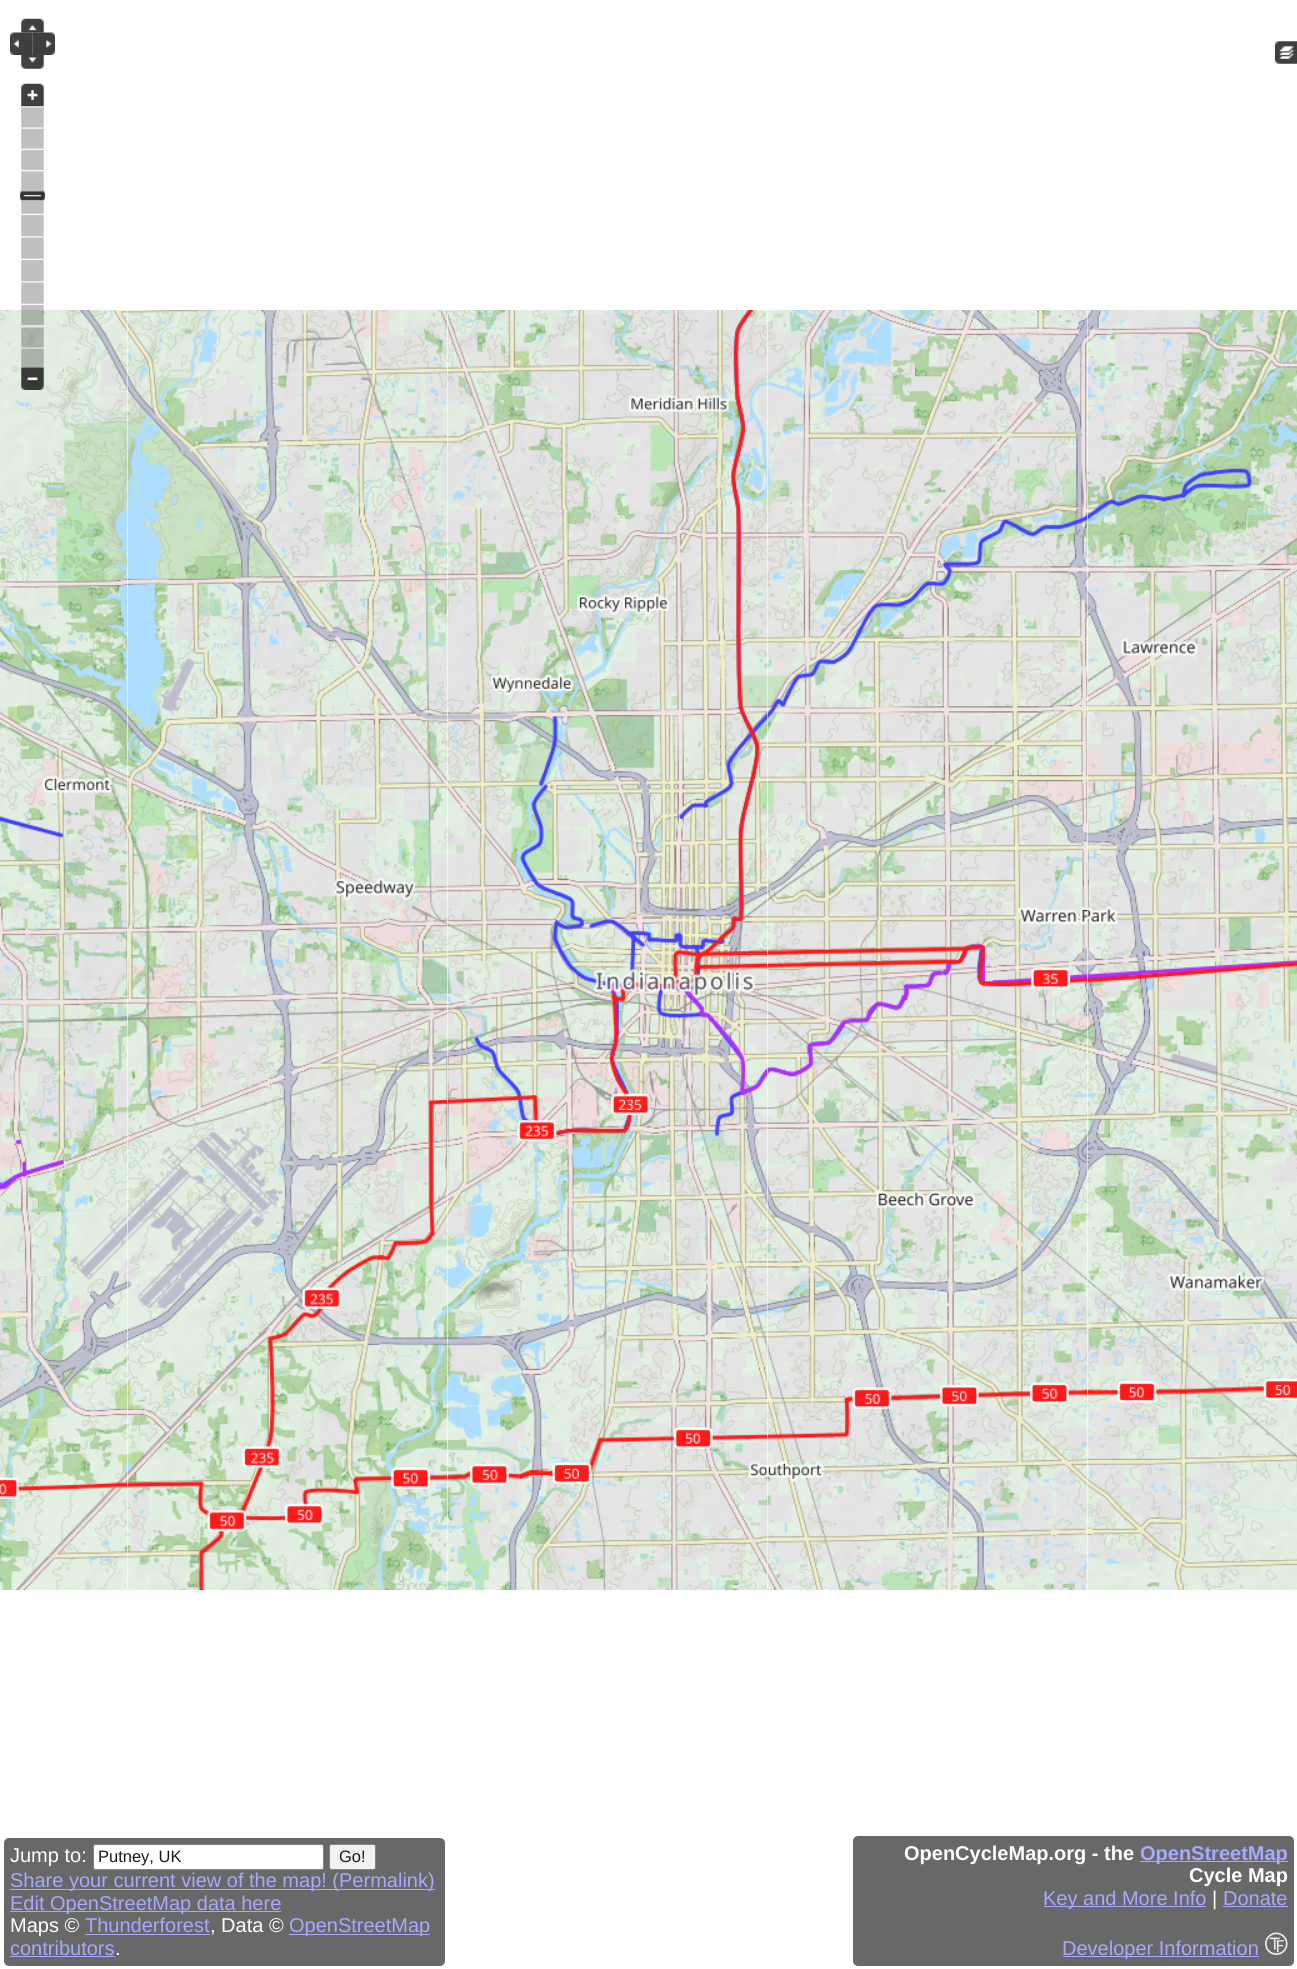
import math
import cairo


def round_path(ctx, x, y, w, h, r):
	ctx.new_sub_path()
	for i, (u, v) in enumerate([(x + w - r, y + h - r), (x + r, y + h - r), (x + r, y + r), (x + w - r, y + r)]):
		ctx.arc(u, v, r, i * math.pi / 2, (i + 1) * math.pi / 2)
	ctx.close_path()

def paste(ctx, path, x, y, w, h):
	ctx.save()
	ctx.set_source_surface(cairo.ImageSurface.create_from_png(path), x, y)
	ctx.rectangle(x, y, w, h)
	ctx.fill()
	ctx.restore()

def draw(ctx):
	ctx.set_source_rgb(1, 1, 1)
	ctx.paint()
	ctx.set_source_rgb(0.408, 0.408, 0.408)
	round_path(ctx, 4, 1838, 441, 128, 5)
	ctx.fill()
	ctx.select_font_face('Liberation Sans')
	ctx.set_font_size(20)
	ctx.set_source_rgb(1, 1, 1)
	ctx.move_to(10, 1862)
	ctx.show_text('Jump to:')
	round_path(ctx, 93.5, 1844.5, 230, 25, 2)
	ctx.fill_preserve()
	ctx.set_source_rgb(0.518, 0.518, 0.518)
	ctx.set_line_width(1)
	ctx.stroke()
	ctx.set_font_size(16.5)
	ctx.set_source_rgb(0.102, 0.102, 0.102)
	ctx.move_to(98, 1862)
	ctx.show_text('Putney, UK')
	ctx.set_source_rgb(0.945, 0.945, 0.945)
	round_path(ctx, 329.5, 1844.5, 46, 25, 2)
	ctx.fill_preserve()
	ctx.set_source_rgb(0.518, 0.518, 0.518)
	ctx.stroke()
	ctx.set_source_rgb(0.102, 0.102, 0.102)
	ctx.move_to(339, 1862)
	ctx.show_text('Go!')
	ctx.set_source_rgb(0.659, 0.659, 1)
	ctx.rectangle(10, 1889, 425, 1)
	ctx.fill()
	ctx.set_font_size(20)
	ctx.move_to(10, 1887)
	ctx.show_text('Share your current view of the map! (Permalink)')
	ctx.rectangle(10, 1911, 271, 1)
	ctx.fill()
	ctx.move_to(10, 1910)
	ctx.show_text('Edit OpenStreetMap data here')
	ctx.set_source_rgb(1, 1, 1)
	ctx.move_to(10, 1932)
	ctx.show_text('Maps ©')
	ctx.set_source_rgb(0.659, 0.659, 1)
	ctx.move_to(85, 1932)
	ctx.show_text('Thunderforest')
	ctx.rectangle(85, 1934, 125, 1)
	ctx.fill()
	ctx.set_source_rgb(1, 1, 1)
	ctx.move_to(210, 1932)
	ctx.show_text(', Data ©')
	ctx.set_source_rgb(0.659, 0.659, 1)
	ctx.rectangle(289, 1934, 141, 1)
	ctx.fill()
	ctx.move_to(289, 1932)
	ctx.show_text('OpenStreetMap')
	ctx.move_to(10, 1955)
	ctx.show_text('contributors')
	ctx.rectangle(10, 1956, 105, 1)
	ctx.fill()
	ctx.set_source_rgb(1, 1, 1)
	ctx.move_to(115, 1955)
	ctx.show_text('.')
	paste(ctx, 'media/1.png', 21, 18, 23, 15)
	paste(ctx, 'media/2.png', 10, 32, 23, 23)
	paste(ctx, 'media/3.png', 32, 32, 23, 23)
	paste(ctx, 'media/4.png', 21, 55, 23, 14)
	paste(ctx, 'media/5.png', 21, 83, 23, 24)
	paste(ctx, 'media/12.png', 447, 310, 321, 320)
	paste(ctx, 'media/11.png', 127, 310, 321, 320)
	paste(ctx, 'media/10.png', 0, 310, 128, 320)
	paste(ctx, 'media/6.png', 21, 107, 23, 261)
	paste(ctx, 'media/7.png', 20, 191, 25, 10)
	paste(ctx, 'media/8.png', 21, 367, 23, 23)
	paste(ctx, 'media/9.png', 1275, 41, 22, 23)
	paste(ctx, 'media/13.png', 767, 310, 321, 320)
	paste(ctx, 'media/14.png', 1087, 310, 210, 320)
	paste(ctx, 'media/16.png', 127, 630, 321, 320)
	paste(ctx, 'media/15.png', 0, 630, 128, 320)
	paste(ctx, 'media/17.png', 447, 630, 321, 320)
	paste(ctx, 'media/18.png', 767, 630, 321, 320)
	paste(ctx, 'media/19.png', 1087, 630, 210, 320)
	paste(ctx, 'media/21.png', 127, 950, 321, 320)
	paste(ctx, 'media/20.png', 0, 950, 128, 320)
	paste(ctx, 'media/22.png', 447, 950, 321, 320)
	paste(ctx, 'media/23.png', 767, 950, 321, 320)
	paste(ctx, 'media/24.png', 1087, 950, 210, 320)
	paste(ctx, 'media/25.png', 0, 1270, 128, 320)
	paste(ctx, 'media/26.png', 127, 1270, 321, 320)
	paste(ctx, 'media/27.png', 447, 1270, 321, 320)
	paste(ctx, 'media/28.png', 767, 1270, 321, 320)
	paste(ctx, 'media/29.png', 1087, 1270, 210, 320)
	ctx.set_source_rgb(0.408, 0.408, 0.408)
	round_path(ctx, 853, 1836, 441, 130, 5)
	ctx.fill()
	ctx.select_font_face('Liberation Sans', cairo.FONT_SLANT_NORMAL, cairo.FONT_WEIGHT_BOLD)
	ctx.set_source_rgb(1, 1, 1)
	ctx.move_to(904, 1860)
	ctx.show_text('OpenCycleMap.org - the')
	ctx.set_source_rgb(0.659, 0.659, 1)
	ctx.rectangle(1140, 1861, 148, 1)
	ctx.fill()
	ctx.move_to(1140, 1860)
	ctx.show_text('OpenStreetMap')
	ctx.set_source_rgb(1, 1, 1)
	ctx.move_to(1189, 1882)
	ctx.show_text('Cycle Map')
	ctx.set_source_rgb(0.659, 0.659, 1)
	ctx.rectangle(1044, 1906, 162, 1)
	ctx.fill()
	ctx.select_font_face('Liberation Sans')
	ctx.move_to(1043, 1905)
	ctx.show_text('Key and More Info')
	ctx.set_source_rgb(1, 1, 1)
	ctx.move_to(1212, 1905)
	ctx.show_text('|')
	ctx.set_source_rgb(0.659, 0.659, 1)
	ctx.move_to(1223, 1905)
	ctx.show_text('Donate')
	ctx.rectangle(1223, 1906, 65, 1)
	ctx.fill()
	ctx.rectangle(1063, 1956, 196, 1)
	ctx.fill()
	ctx.move_to(1062, 1955)
	ctx.show_text('Developer Information')
	paste(ctx, 'media/30.png', 1265, 1932, 23, 23)


surface = cairo.ImageSurface(cairo.FORMAT_RGB24, 1297, 1969)
ctx = cairo.Context(surface)
options = cairo.FontOptions()
options.set_hint_metrics(cairo.HINT_METRICS_OFF)
options.set_hint_style(cairo.HINT_STYLE_NONE)
ctx.set_font_options(options)
ctx.set_miter_limit(4)
draw(ctx)
surface.write_to_png('image.png')
